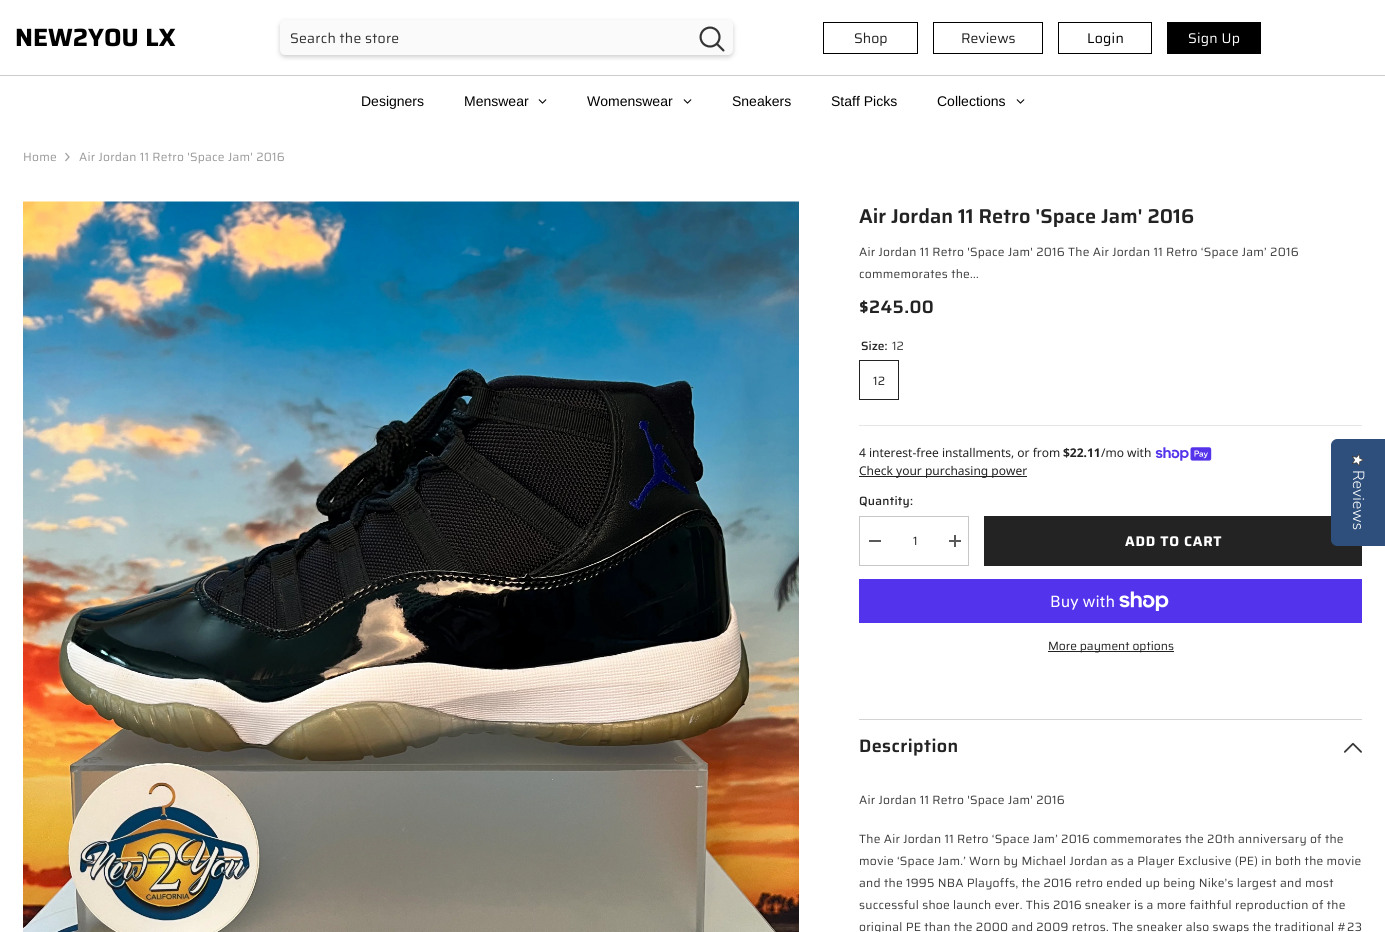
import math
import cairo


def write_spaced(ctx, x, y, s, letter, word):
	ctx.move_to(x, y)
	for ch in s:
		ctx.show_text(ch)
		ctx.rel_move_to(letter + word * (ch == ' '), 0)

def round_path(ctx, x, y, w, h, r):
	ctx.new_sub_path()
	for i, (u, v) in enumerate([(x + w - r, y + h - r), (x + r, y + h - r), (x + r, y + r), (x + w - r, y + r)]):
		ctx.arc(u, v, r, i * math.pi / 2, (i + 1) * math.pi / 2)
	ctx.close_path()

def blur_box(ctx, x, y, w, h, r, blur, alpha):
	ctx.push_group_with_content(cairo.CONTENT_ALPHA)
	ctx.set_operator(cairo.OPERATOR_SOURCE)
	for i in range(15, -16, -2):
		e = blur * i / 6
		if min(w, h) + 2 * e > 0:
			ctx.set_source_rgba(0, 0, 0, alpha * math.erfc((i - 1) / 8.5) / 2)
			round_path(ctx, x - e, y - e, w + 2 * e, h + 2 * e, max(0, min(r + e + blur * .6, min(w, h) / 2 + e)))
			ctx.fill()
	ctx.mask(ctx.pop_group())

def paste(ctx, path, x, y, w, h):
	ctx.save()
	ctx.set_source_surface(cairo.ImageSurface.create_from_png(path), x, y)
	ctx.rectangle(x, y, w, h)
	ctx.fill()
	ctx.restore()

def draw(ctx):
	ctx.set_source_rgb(1, 1, 1)
	ctx.paint()
	ctx.select_font_face('Saira', cairo.FONT_SLANT_NORMAL, cairo.FONT_WEIGHT_BOLD)
	ctx.set_font_size(25)
	ctx.set_source_rgb(0, 0, 0)
	ctx.move_to(15, 46)
	ctx.show_text('NEW2YOU LX')
	ctx.set_source_rgb(0, 0, 0)
	blur_box(ctx, 280, 22, 453, 35, 5, 2.5, 0.2)
	ctx.set_source_rgb(0.98, 0.98, 0.98)
	round_path(ctx, 280, 20, 453, 35, 5)
	ctx.fill()
	ctx.select_font_face('Saira')
	ctx.set_font_size(14)
	ctx.set_source_rgb(0.196, 0.196, 0.196)
	write_spaced(ctx, 290, 43, 'Search the store', 0.25, 0)
	paste(ctx, 'media/1.png', 699, 26, 26, 26)
	ctx.rectangle(823.5, 22.5, 94, 31)
	ctx.set_source_rgb(0, 0, 0)
	ctx.set_line_width(1)
	ctx.stroke()
	ctx.set_source_rgb(0.137, 0.137, 0.137)
	ctx.move_to(854, 43)
	ctx.show_text('Shop')
	ctx.rectangle(933.5, 22.5, 109, 31)
	ctx.set_source_rgb(0, 0, 0)
	ctx.stroke()
	ctx.set_source_rgb(0.137, 0.137, 0.137)
	ctx.move_to(961, 43)
	ctx.show_text('Reviews')
	ctx.rectangle(1058.5, 22.5, 93, 31)
	ctx.set_source_rgb(0, 0, 0)
	ctx.stroke()
	write_spaced(ctx, 1087, 43, 'Login', 0.25, 0)
	ctx.rectangle(1167, 22, 94, 32)
	ctx.fill()
	ctx.set_source_rgb(1, 1, 1)
	write_spaced(ctx, 1188, 43, 'Sign Up', 0.25, 0)
	ctx.set_source_rgb(0.8, 0.8, 0.8)
	ctx.rectangle(0, 75, 1385, 1)
	ctx.fill()
	ctx.select_font_face('Liberation Sans')
	ctx.set_source_rgb(0, 0, 0)
	ctx.move_to(361, 106)
	ctx.show_text('Designers')
	ctx.move_to(464, 106)
	ctx.show_text('Menswear')
	paste(ctx, 'media/2.png', 538, 99, 9, 5)
	ctx.move_to(587, 106)
	ctx.show_text('Womenswear')
	paste(ctx, 'media/2.png', 683, 99, 9, 5)
	for x, y, s in [
		(732, 106, 'Sneakers'),
		(831, 106, 'Staff Picks'),
		(937, 106, 'Collections'),
	]:
		ctx.move_to(x, y)
		ctx.show_text(s)
	paste(ctx, 'media/2.png', 1016, 99, 9, 5)
	ctx.select_font_face('Saira')
	ctx.set_font_size(12)
	ctx.set_source_rgb(0.6, 0.6, 0.6)
	write_spaced(ctx, 23, 161, 'Home', 0.25, 0)
	paste(ctx, 'media/3.png', 65, 152, 5, 10)
	write_spaced(ctx, 79, 161, 'Air Jordan 11 Retro \'Space Jam\' 2016', 0.25, 0)
	paste(ctx, 'media/4.png', 23, 201, 776, 731)
	ctx.select_font_face('Saira SemiBold')
	ctx.set_font_size(20)
	ctx.set_source_rgb(0.137, 0.137, 0.137)
	ctx.move_to(859, 223)
	ctx.show_text('Air Jordan 11 Retro \'Space Jam\' 2016')
	ctx.select_font_face('Saira')
	ctx.set_font_size(12)
	ctx.set_source_rgb(0.235, 0.235, 0.235)
	write_spaced(ctx, 859, 256, 'Air Jordan 11 Retro \'Space Jam\' 2016 The Air Jordan 11 Retro ‘Space Jam’ 2016', 0.25, 0)
	write_spaced(ctx, 859, 278, 'commemorates the...', 0.25, 0)
	ctx.select_font_face('Saira SemiBold')
	ctx.set_font_size(18)
	ctx.set_source_rgb(0.137, 0.137, 0.137)
	write_spaced(ctx, 859, 313, '$245.00', 0.4, 0)
	ctx.set_source_rgb(0.902, 0.902, 0.902)
	ctx.rectangle(859, 425, 503, 1)
	ctx.fill()
	ctx.select_font_face('Saira Medium')
	ctx.set_font_size(12)
	ctx.set_source_rgb(0.137, 0.137, 0.137)
	ctx.move_to(861, 350)
	ctx.show_text('Size:')
	ctx.select_font_face('Saira')
	ctx.set_source_rgb(0.235, 0.235, 0.235)
	ctx.move_to(892, 350)
	ctx.show_text('12')
	ctx.rectangle(859.5, 360.5, 39, 39)
	ctx.set_source_rgb(0.137, 0.137, 0.137)
	ctx.stroke()
	write_spaced(ctx, 873, 385, '12', 0.25, 0)
	ctx.select_font_face('Noto Sans')
	ctx.move_to(859, 457)
	ctx.show_text('4 interest-free installments, or from')
	ctx.select_font_face('Noto Sans', cairo.FONT_SLANT_NORMAL, cairo.FONT_WEIGHT_BOLD)
	ctx.move_to(1063, 457)
	ctx.show_text('$22.11')
	ctx.select_font_face('Noto Sans')
	ctx.move_to(1101, 457)
	ctx.show_text('/mo with')
	paste(ctx, 'media/5.png', 1155, 447, 57, 14)
	ctx.rectangle(859, 476, 168, 1)
	ctx.fill()
	ctx.move_to(859, 475)
	ctx.show_text('Check your purchasing power')
	ctx.select_font_face('Saira Medium')
	write_spaced(ctx, 859, 505, 'Quantity:', 0.25, 0)
	ctx.rectangle(859.5, 516.5, 109, 49)
	ctx.set_source_rgb(0.78, 0.78, 0.78)
	ctx.stroke()
	ctx.set_source_rgb(0.353, 0.353, 0.353)
	ctx.rectangle(869, 540, 12, 2)
	ctx.fill()
	ctx.select_font_face('Saira')
	ctx.set_source_rgb(0.137, 0.137, 0.137)
	write_spaced(ctx, 913, 545, '1', 0.25, 0)
	ctx.set_source_rgb(0.353, 0.353, 0.353)
	ctx.rectangle(949, 540, 12, 2)
	ctx.rectangle(954, 535, 2, 12)
	ctx.fill()
	ctx.set_source_rgb(0.137, 0.137, 0.137)
	ctx.rectangle(984, 516, 378, 50)
	ctx.fill()
	ctx.select_font_face('Saira', cairo.FONT_SLANT_NORMAL, cairo.FONT_WEIGHT_BOLD)
	ctx.set_font_size(14)
	ctx.set_source_rgb(1, 1, 1)
	write_spaced(ctx, 1125, 546, 'ADD TO CART', 0.75, 0)
	ctx.set_source_rgb(0.329, 0.2, 0.922)
	ctx.rectangle(859, 579, 503, 44)
	ctx.fill()
	ctx.select_font_face('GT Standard')
	ctx.set_font_size(16)
	ctx.set_source_rgb(1, 1, 1)
	ctx.move_to(1050, 607)
	ctx.show_text('Buy with')
	paste(ctx, 'media/6.png', 1119, 591, 50, 20)
	ctx.set_source_rgb(0.137, 0.137, 0.137)
	ctx.rectangle(1048, 651, 126, 1)
	ctx.fill()
	ctx.select_font_face('Saira')
	ctx.set_font_size(12)
	ctx.move_to(1048, 650)
	ctx.show_text('More payment options')
	ctx.set_source_rgb(0.827, 0.827, 0.827)
	ctx.rectangle(859, 719, 503, 1)
	ctx.fill()
	ctx.select_font_face('Saira SemiBold')
	ctx.set_font_size(18)
	ctx.set_source_rgb(0.137, 0.137, 0.137)
	write_spaced(ctx, 859, 752, 'Description', 0.4, 0)
	paste(ctx, 'media/7.png', 1344, 742, 18, 11)
	ctx.select_font_face('Saira')
	ctx.set_font_size(12)
	ctx.set_source_rgb(0.235, 0.235, 0.235)
	for x, y, s in [
		(859, 804, 'Air Jordan 11 Retro \'Space Jam\' 2016'),
		(859, 843, 'The Air Jordan 11 Retro ‘Space Jam’ 2016 commemorates the 20th anniversary of the'),
		(859, 865, 'movie ‘Space Jam.’ Worn by Michael Jordan as a Player Exclusive (PE) in both the movie'),
		(859, 887, 'and the 1995 NBA Playoffs, the 2016 retro ended up being Nike’s largest and most'),
		(859, 909, 'successful shoe launch ever. This 2016 sneaker is a more faithful reproduction of the'),
		(859, 931, 'original PE than the 2000 and 2009 retros. The sneaker also swaps the traditional #23'),
	]:
		write_spaced(ctx, x, y, s, 0.25, 0)
	ctx.set_source_rgb(0.18, 0.31, 0.486)
	ctx.new_path()
	ctx.move_to(1385, 439)
	ctx.line_to(1385, 546)
	ctx.line_to(1337, 546)
	ctx.curve_to(1334, 546, 1331, 543, 1331, 540)
	ctx.line_to(1331, 445)
	ctx.curve_to(1331, 442, 1334, 439, 1337, 439)
	ctx.close_path()
	ctx.fill()
	paste(ctx, 'media/8.png', 1352, 454, 12, 12)
	ctx.select_font_face('Nunito Sans Light')
	ctx.set_font_size(16)
	ctx.set_source_rgb(1, 1, 1)
	ctx.save()
	ctx.translate(1353, 470)
	ctx.rotate(90 * math.pi / 180)
	ctx.move_to(0, 0)
	ctx.show_text('Reviews')
	ctx.restore()


surface = cairo.ImageSurface(cairo.FORMAT_RGB24, 1385, 932)
ctx = cairo.Context(surface)
options = cairo.FontOptions()
options.set_hint_metrics(cairo.HINT_METRICS_OFF)
options.set_hint_style(cairo.HINT_STYLE_NONE)
ctx.set_font_options(options)
ctx.set_miter_limit(4)
draw(ctx)
surface.write_to_png('image.png')
